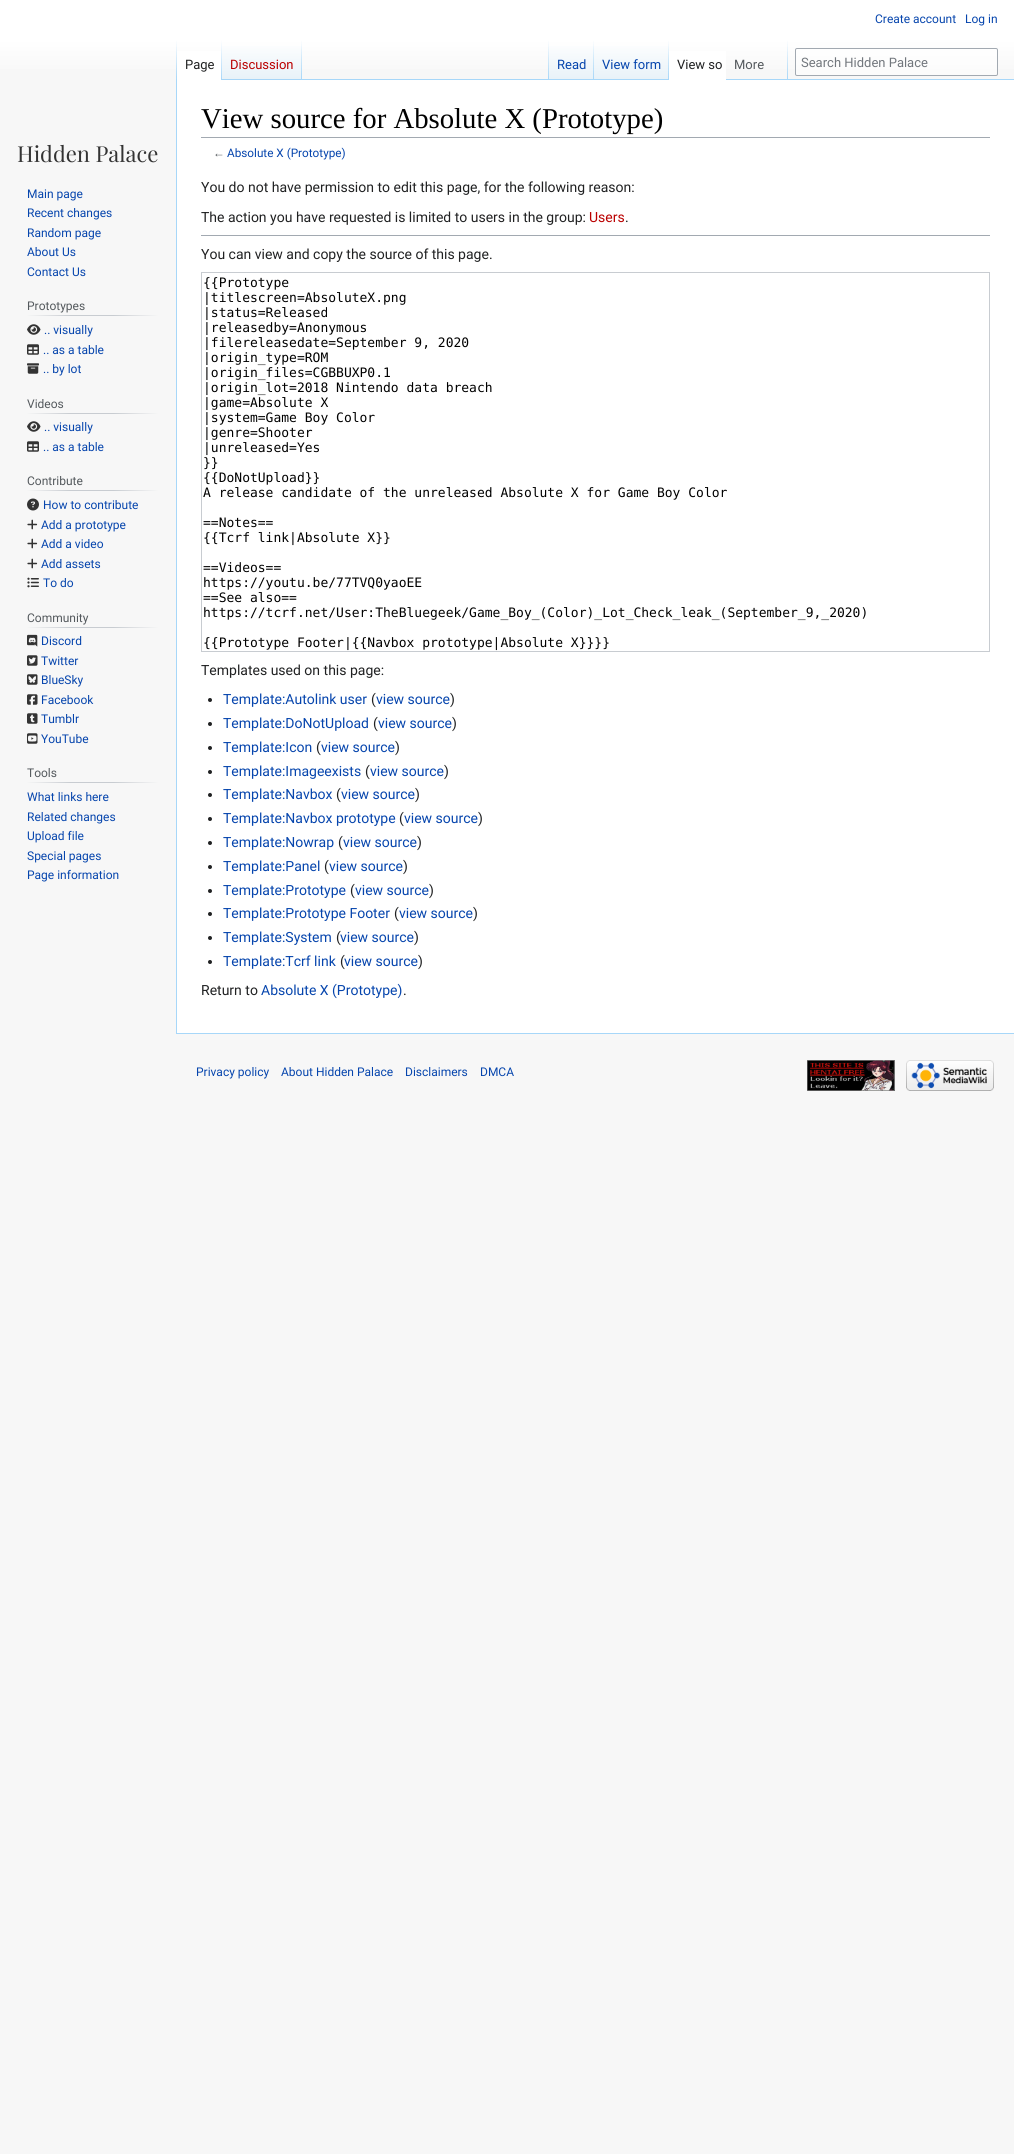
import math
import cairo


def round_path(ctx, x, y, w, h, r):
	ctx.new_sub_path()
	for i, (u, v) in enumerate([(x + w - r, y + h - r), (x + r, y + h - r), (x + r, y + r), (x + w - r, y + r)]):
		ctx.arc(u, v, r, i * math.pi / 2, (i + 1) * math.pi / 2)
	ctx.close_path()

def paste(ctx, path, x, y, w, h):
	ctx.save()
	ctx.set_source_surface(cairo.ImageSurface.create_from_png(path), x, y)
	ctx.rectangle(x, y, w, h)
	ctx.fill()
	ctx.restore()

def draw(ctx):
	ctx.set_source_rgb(0.965, 0.965, 0.965)
	ctx.paint()
	gradient = cairo.LinearGradient(507, 0, 507, 80)
	gradient.add_color_stop_rgba(0.5, 1, 1, 1, 1)
	gradient.add_color_stop_rgba(1, 0.965, 0.965, 0.965, 1)
	ctx.set_source(gradient)
	ctx.rectangle(0, 0, 1014, 69)
	ctx.fill()
	ctx.select_font_face('Roboto')
	ctx.set_font_size(12)
	ctx.set_source_rgb(0.024, 0.271, 0.678)
	ctx.move_to(875, 23)
	ctx.show_text('Create account')
	ctx.move_to(965, 23)
	ctx.show_text('Log in')
	ctx.set_source_rgb(0.655, 0.843, 0.976)
	ctx.rectangle(176, 1033, 838, 1)
	ctx.fill()
	ctx.rectangle(176, 79, 1, 955)
	ctx.fill()
	gradient = cairo.LinearGradient(177, 40, 177, 80)
	gradient.add_color_stop_rgba(0, 0.655, 0.843, 0.976, 0)
	gradient.add_color_stop_rgba(1, 0.655, 0.843, 0.976, 1)
	ctx.set_source(gradient)
	ctx.rectangle(176, 40, 1, 40)
	ctx.fill()
	ctx.set_source_rgb(1, 1, 1)
	ctx.rectangle(177, 51, 44, 29)
	ctx.fill()
	gradient = cairo.LinearGradient(222, 40, 222, 80)
	gradient.add_color_stop_rgba(0, 1, 1, 1, 1)
	gradient.add_color_stop_rgba(1, 0.655, 0.843, 0.976, 1)
	ctx.set_source(gradient)
	ctx.rectangle(221, 40, 1, 40)
	ctx.fill()
	ctx.set_font_size(13)
	ctx.set_source_rgb(0.125, 0.129, 0.133)
	ctx.move_to(185, 69)
	ctx.show_text('Page')
	gradient = cairo.LinearGradient(262, 80, 262, 40)
	gradient.add_color_stop_rgba(0, 0.467, 0.757, 0.965, 1)
	gradient.add_color_stop_rgba(0.03, 0.91, 0.949, 0.973, 1)
	gradient.add_color_stop_rgba(1, 1, 1, 1, 1)
	ctx.set_source(gradient)
	ctx.rectangle(222, 46, 80, 34)
	ctx.fill()
	gradient = cairo.LinearGradient(302, 40, 302, 80)
	gradient.add_color_stop_rgba(0, 0.655, 0.843, 0.976, 0)
	gradient.add_color_stop_rgba(1, 0.655, 0.843, 0.976, 1)
	ctx.set_source(gradient)
	ctx.rectangle(301, 40, 1, 40)
	ctx.fill()
	ctx.set_source_rgb(0.729, 0, 0)
	ctx.move_to(230, 69)
	ctx.show_text('Discussion')
	ctx.set_source_rgb(0.655, 0.843, 0.976)
	ctx.rectangle(302, 79, 712, 1)
	ctx.fill()
	gradient = cairo.LinearGradient(549, 40, 549, 80)
	gradient.add_color_stop_rgba(0, 0.655, 0.843, 0.976, 0)
	gradient.add_color_stop_rgba(1, 0.655, 0.843, 0.976, 1)
	ctx.set_source(gradient)
	ctx.rectangle(548, 40, 1, 40)
	ctx.fill()
	gradient = cairo.LinearGradient(572, 80, 572, 40)
	gradient.add_color_stop_rgba(0, 0.467, 0.757, 0.965, 1)
	gradient.add_color_stop_rgba(0.03, 0.91, 0.949, 0.973, 1)
	gradient.add_color_stop_rgba(1, 1, 1, 1, 1)
	ctx.set_source(gradient)
	ctx.rectangle(549, 46, 45, 33)
	ctx.fill()
	gradient = cairo.LinearGradient(594, 40, 594, 80)
	gradient.add_color_stop_rgba(0, 0.655, 0.843, 0.976, 0)
	gradient.add_color_stop_rgba(1, 0.655, 0.843, 0.976, 1)
	ctx.set_source(gradient)
	ctx.rectangle(593, 40, 1, 40)
	ctx.fill()
	ctx.set_source_rgb(0.024, 0.271, 0.678)
	ctx.move_to(557, 69)
	ctx.show_text('Read')
	gradient = cairo.LinearGradient(632, 80, 632, 40)
	gradient.add_color_stop_rgba(0, 0.467, 0.757, 0.965, 1)
	gradient.add_color_stop_rgba(0.03, 0.91, 0.949, 0.973, 1)
	gradient.add_color_stop_rgba(1, 1, 1, 1, 1)
	ctx.set_source(gradient)
	ctx.rectangle(594, 46, 75, 33)
	ctx.fill()
	gradient = cairo.LinearGradient(669, 40, 669, 80)
	gradient.add_color_stop_rgba(0, 0.655, 0.843, 0.976, 0)
	gradient.add_color_stop_rgba(1, 0.655, 0.843, 0.976, 1)
	ctx.set_source(gradient)
	ctx.rectangle(668, 40, 1, 40)
	ctx.fill()
	ctx.set_source_rgb(0.024, 0.271, 0.678)
	ctx.move_to(602, 69)
	ctx.show_text('View form')
	ctx.set_source_rgb(1, 1, 1)
	ctx.rectangle(669, 51, 57, 29)
	ctx.fill()
	ctx.set_source_rgb(0.125, 0.129, 0.133)
	ctx.move_to(677, 69)
	ctx.show_text('View so')
	gradient = cairo.LinearGradient(788, 40, 788, 80)
	gradient.add_color_stop_rgba(0, 0.655, 0.843, 0.976, 0)
	gradient.add_color_stop_rgba(1, 0.655, 0.843, 0.976, 1)
	ctx.set_source(gradient)
	ctx.rectangle(787, 40, 1, 40)
	ctx.fill()
	ctx.set_source_rgb(0.329, 0.349, 0.365)
	ctx.move_to(734, 69)
	ctx.show_text('More')
	ctx.set_source_rgba(1, 1, 1, 0.5)
	round_path(ctx, 795.5, 48.5, 202, 27, 1.5)
	ctx.fill_preserve()
	ctx.set_source_rgb(0.635, 0.663, 0.694)
	ctx.set_line_width(1)
	ctx.stroke()
	ctx.set_source_rgb(0.447, 0.467, 0.49)
	ctx.move_to(801, 67)
	ctx.show_text('Search Hidden Palace')
	ctx.select_font_face('Playfair Display')
	ctx.set_font_size(22)
	ctx.set_source_rgb(0.2, 0.2, 0.2)
	ctx.move_to(17, 162)
	ctx.show_text('Hidden Palace')
	ctx.select_font_face('Roboto')
	ctx.set_font_size(12)
	ctx.set_source_rgb(0.024, 0.271, 0.678)
	for x, y, s in [
		(27, 198, 'Main page'),
		(27, 217, 'Recent changes'),
		(27, 237, 'Random page'),
		(27, 256, 'About Us'),
		(27, 276, 'Contact Us'),
	]:
		ctx.move_to(x, y)
		ctx.show_text(s)
	gradient = cairo.LinearGradient(27, 316, 158, 316)
	gradient.add_color_stop_rgba(0, 0.965, 0.965, 0.965, 1)
	gradient.add_color_stop_rgba(0.33, 0.784, 0.8, 0.82, 1)
	gradient.add_color_stop_rgba(0.66, 0.784, 0.8, 0.82, 1)
	gradient.add_color_stop_rgba(1, 0.965, 0.965, 0.965, 1)
	ctx.set_source(gradient)
	ctx.rectangle(27, 315, 131, 1)
	ctx.fill()
	ctx.set_source_rgb(0.329, 0.349, 0.365)
	ctx.move_to(27, 310)
	ctx.show_text('Prototypes')
	paste(ctx, 'media/1.png', 27, 324, 14, 11)
	ctx.set_source_rgb(0.024, 0.271, 0.678)
	ctx.move_to(44, 334)
	ctx.show_text('.. visually')
	paste(ctx, 'media/2.png', 27, 344, 12, 11)
	ctx.move_to(43, 354)
	ctx.show_text('.. as a table')
	paste(ctx, 'media/3.png', 27, 363, 12, 11)
	ctx.move_to(43, 373)
	ctx.show_text('.. by lot')
	gradient = cairo.LinearGradient(27, 414, 158, 414)
	gradient.add_color_stop_rgba(0, 0.965, 0.965, 0.965, 1)
	gradient.add_color_stop_rgba(0.33, 0.784, 0.8, 0.82, 1)
	gradient.add_color_stop_rgba(0.66, 0.784, 0.8, 0.82, 1)
	gradient.add_color_stop_rgba(1, 0.965, 0.965, 0.965, 1)
	ctx.set_source(gradient)
	ctx.rectangle(27, 413, 131, 1)
	ctx.fill()
	ctx.set_source_rgb(0.329, 0.349, 0.365)
	ctx.move_to(27, 408)
	ctx.show_text('Videos')
	paste(ctx, 'media/1.png', 27, 421, 14, 11)
	ctx.set_source_rgb(0.024, 0.271, 0.678)
	ctx.move_to(44, 431)
	ctx.show_text('.. visually')
	paste(ctx, 'media/2.png', 27, 441, 12, 11)
	ctx.move_to(43, 451)
	ctx.show_text('.. as a table')
	gradient = cairo.LinearGradient(27, 491, 158, 491)
	gradient.add_color_stop_rgba(0, 0.965, 0.965, 0.965, 1)
	gradient.add_color_stop_rgba(0.33, 0.784, 0.8, 0.82, 1)
	gradient.add_color_stop_rgba(0.66, 0.784, 0.8, 0.82, 1)
	gradient.add_color_stop_rgba(1, 0.965, 0.965, 0.965, 1)
	ctx.set_source(gradient)
	ctx.rectangle(27, 490, 131, 1)
	ctx.fill()
	ctx.set_source_rgb(0.329, 0.349, 0.365)
	ctx.move_to(27, 485)
	ctx.show_text('Contribute')
	paste(ctx, 'media/4.png', 27, 498, 12, 13)
	ctx.set_source_rgb(0.024, 0.271, 0.678)
	ctx.move_to(43, 509)
	ctx.show_text('How to contribute')
	paste(ctx, 'media/5.png', 27, 519, 11, 11)
	ctx.move_to(41, 529)
	ctx.show_text('Add a prototype')
	paste(ctx, 'media/5.png', 27, 538, 11, 11)
	ctx.move_to(41, 548)
	ctx.show_text('Add a video')
	paste(ctx, 'media/5.png', 27, 558, 11, 11)
	ctx.move_to(41, 568)
	ctx.show_text('Add assets')
	paste(ctx, 'media/6.png', 27, 577, 12, 11)
	ctx.move_to(43, 587)
	ctx.show_text('To do')
	gradient = cairo.LinearGradient(27, 628, 158, 628)
	gradient.add_color_stop_rgba(0, 0.965, 0.965, 0.965, 1)
	gradient.add_color_stop_rgba(0.33, 0.784, 0.8, 0.82, 1)
	gradient.add_color_stop_rgba(0.66, 0.784, 0.8, 0.82, 1)
	gradient.add_color_stop_rgba(1, 0.965, 0.965, 0.965, 1)
	ctx.set_source(gradient)
	ctx.rectangle(27, 627, 131, 1)
	ctx.fill()
	ctx.set_source_rgb(0.329, 0.349, 0.365)
	ctx.move_to(27, 622)
	ctx.show_text('Community')
	paste(ctx, 'media/7.png', 27, 634, 11, 13)
	ctx.set_source_rgb(0.024, 0.271, 0.678)
	ctx.move_to(41, 645)
	ctx.show_text('Discord')
	paste(ctx, 'media/8.png', 27, 655, 11, 11)
	ctx.move_to(41, 665)
	ctx.show_text('Twitter')
	paste(ctx, 'media/9.png', 27, 674, 11, 11)
	ctx.move_to(41, 684)
	ctx.show_text('BlueSky')
	paste(ctx, 'media/10.png', 27, 694, 11, 11)
	ctx.move_to(41, 704)
	ctx.show_text('Facebook')
	paste(ctx, 'media/11.png', 27, 713, 11, 11)
	ctx.move_to(41, 723)
	ctx.show_text('Tumblr')
	paste(ctx, 'media/12.png', 27, 733, 11, 11)
	ctx.move_to(41, 743)
	ctx.show_text('YouTube')
	gradient = cairo.LinearGradient(27, 783, 158, 783)
	gradient.add_color_stop_rgba(0, 0.965, 0.965, 0.965, 1)
	gradient.add_color_stop_rgba(0.33, 0.784, 0.8, 0.82, 1)
	gradient.add_color_stop_rgba(0.66, 0.784, 0.8, 0.82, 1)
	gradient.add_color_stop_rgba(1, 0.965, 0.965, 0.965, 1)
	ctx.set_source(gradient)
	ctx.rectangle(27, 782, 131, 1)
	ctx.fill()
	ctx.set_source_rgb(0.329, 0.349, 0.365)
	ctx.move_to(27, 777)
	ctx.show_text('Tools')
	ctx.set_source_rgb(0.024, 0.271, 0.678)
	for x, y, s in [
		(27, 801, 'What links here'),
		(27, 821, 'Related changes'),
		(27, 840, 'Upload file'),
		(27, 860, 'Special pages'),
		(27, 879, 'Page information'),
	]:
		ctx.move_to(x, y)
		ctx.show_text(s)
	ctx.set_source_rgb(1, 1, 1)
	ctx.rectangle(177, 80, 837, 953)
	ctx.fill()
	ctx.set_source_rgb(0.635, 0.663, 0.694)
	ctx.rectangle(201, 137, 789, 1)
	ctx.fill()
	ctx.select_font_face('Liberation Serif')
	ctx.set_font_size(28.75)
	ctx.set_source_rgb(0, 0, 0)
	ctx.move_to(201, 128)
	ctx.show_text('View source for Absolute X (Prototype)')
	ctx.select_font_face('Liberation Sans')
	ctx.set_font_size(11.75)
	ctx.set_source_rgb(0.329, 0.349, 0.365)
	ctx.move_to(213, 157)
	ctx.show_text('←')
	ctx.select_font_face('Roboto')
	ctx.set_source_rgb(0.024, 0.271, 0.678)
	ctx.move_to(227, 157)
	ctx.show_text('Absolute X (Prototype)')
	ctx.set_font_size(14)
	ctx.set_source_rgb(0.125, 0.129, 0.133)
	ctx.move_to(201, 192)
	ctx.show_text('You do not have permission to edit this page, for the following reason:')
	ctx.move_to(201, 222)
	ctx.show_text('The action you have requested is limited to users in the group:')
	ctx.set_source_rgb(0.729, 0, 0)
	ctx.move_to(589, 222)
	ctx.show_text('Users')
	ctx.set_source_rgb(0.125, 0.129, 0.133)
	ctx.move_to(625, 222)
	ctx.show_text('.')
	ctx.set_source_rgb(0.635, 0.663, 0.694)
	ctx.rectangle(201, 235, 789, 1)
	ctx.fill()
	ctx.set_source_rgb(0.125, 0.129, 0.133)
	ctx.move_to(201, 259)
	ctx.show_text('You can view and copy the source of this page.')
	ctx.rectangle(201.5, 272.5, 788, 379)
	ctx.set_source_rgb(0.784, 0.8, 0.82)
	ctx.stroke()
	ctx.select_font_face('DejaVu Sans Mono')
	ctx.set_font_size(13)
	ctx.set_source_rgb(0, 0, 0)
	for x, y, s in [
		(203, 287, '{{Prototype'),
		(203, 302, '|titlescreen=AbsoluteX.png'),
		(203, 317, '|status=Released'),
		(203, 332, '|releasedby=Anonymous'),
		(203, 347, '|filereleasedate=September 9, 2020'),
		(203, 362, '|origin_type=ROM'),
		(203, 377, '|origin_files=CGBBUXP0.1'),
		(203, 392, '|origin_lot=2018 Nintendo data breach'),
		(203, 407, '|game=Absolute X'),
		(203, 422, '|system=Game Boy Color'),
		(203, 437, '|genre=Shooter'),
		(203, 452, '|unreleased=Yes'),
		(203, 467, '}}'),
		(203, 482, '{{DoNotUpload}}'),
		(203, 497, 'A release candidate of the unreleased Absolute X for Game Boy Color'),
		(203, 527, '==Notes=='),
		(203, 542, '{{Tcrf link|Absolute X}}'),
		(203, 572, '==Videos=='),
		(203, 587, 'https://youtu.be/77TVQ0yaoEE'),
		(203, 602, '==See also=='),
		(203, 617, 'https://tcrf.net/User:TheBluegeek/Game_Boy_(Color)_Lot_Check_leak_(September_9,_2020)'),
		(203, 647, '{{Prototype Footer|{{Navbox prototype|Absolute X}}}}'),
	]:
		ctx.move_to(x, y)
		ctx.show_text(s)
	ctx.select_font_face('Roboto')
	ctx.set_font_size(14)
	ctx.set_source_rgb(0.125, 0.129, 0.133)
	ctx.move_to(201, 675)
	ctx.show_text('Templates used on this page:')
	ctx.new_path()
	ctx.arc(210, 700, 2, 0, 2 * math.pi)
	ctx.fill()
	ctx.set_source_rgb(0.024, 0.271, 0.678)
	ctx.move_to(223, 704)
	ctx.show_text('Template:Autolink user')
	ctx.set_source_rgb(0.125, 0.129, 0.133)
	ctx.move_to(371, 704)
	ctx.show_text('(')
	ctx.set_source_rgb(0.024, 0.271, 0.678)
	ctx.move_to(376, 704)
	ctx.show_text('view source')
	ctx.set_source_rgb(0.125, 0.129, 0.133)
	ctx.move_to(450, 704)
	ctx.show_text(')')
	ctx.new_path()
	ctx.arc(210, 724, 2, 0, 2 * math.pi)
	ctx.fill()
	ctx.set_source_rgb(0.024, 0.271, 0.678)
	ctx.move_to(223, 728)
	ctx.show_text('Template:DoNotUpload')
	ctx.set_source_rgb(0.125, 0.129, 0.133)
	ctx.move_to(373, 728)
	ctx.show_text('(')
	ctx.set_source_rgb(0.024, 0.271, 0.678)
	ctx.move_to(378, 728)
	ctx.show_text('view source')
	ctx.set_source_rgb(0.125, 0.129, 0.133)
	ctx.move_to(452, 728)
	ctx.show_text(')')
	ctx.new_path()
	ctx.arc(210, 748, 2, 0, 2 * math.pi)
	ctx.fill()
	ctx.set_source_rgb(0.024, 0.271, 0.678)
	ctx.move_to(223, 752)
	ctx.show_text('Template:Icon')
	ctx.set_source_rgb(0.125, 0.129, 0.133)
	ctx.move_to(316, 752)
	ctx.show_text('(')
	ctx.set_source_rgb(0.024, 0.271, 0.678)
	ctx.move_to(321, 752)
	ctx.show_text('view source')
	ctx.set_source_rgb(0.125, 0.129, 0.133)
	ctx.move_to(395, 752)
	ctx.show_text(')')
	ctx.new_path()
	ctx.arc(210, 772, 2, 0, 2 * math.pi)
	ctx.fill()
	ctx.set_source_rgb(0.024, 0.271, 0.678)
	ctx.move_to(223, 776)
	ctx.show_text('Template:Imageexists')
	ctx.set_source_rgb(0.125, 0.129, 0.133)
	ctx.move_to(365, 776)
	ctx.show_text('(')
	ctx.set_source_rgb(0.024, 0.271, 0.678)
	ctx.move_to(370, 776)
	ctx.show_text('view source')
	ctx.set_source_rgb(0.125, 0.129, 0.133)
	ctx.move_to(444, 776)
	ctx.show_text(')')
	ctx.new_path()
	ctx.arc(210, 795, 2, 0, 2 * math.pi)
	ctx.fill()
	ctx.set_source_rgb(0.024, 0.271, 0.678)
	ctx.move_to(223, 799)
	ctx.show_text('Template:Navbox')
	ctx.set_source_rgb(0.125, 0.129, 0.133)
	ctx.move_to(336, 799)
	ctx.show_text('(')
	ctx.set_source_rgb(0.024, 0.271, 0.678)
	ctx.move_to(341, 799)
	ctx.show_text('view source')
	ctx.set_source_rgb(0.125, 0.129, 0.133)
	ctx.move_to(415, 799)
	ctx.show_text(')')
	ctx.new_path()
	ctx.arc(210, 819, 2, 0, 2 * math.pi)
	ctx.fill()
	ctx.set_source_rgb(0.024, 0.271, 0.678)
	ctx.move_to(223, 823)
	ctx.show_text('Template:Navbox prototype')
	ctx.set_source_rgb(0.125, 0.129, 0.133)
	ctx.move_to(399, 823)
	ctx.show_text('(')
	ctx.set_source_rgb(0.024, 0.271, 0.678)
	ctx.move_to(404, 823)
	ctx.show_text('view source')
	ctx.set_source_rgb(0.125, 0.129, 0.133)
	ctx.move_to(478, 823)
	ctx.show_text(')')
	ctx.new_path()
	ctx.arc(210, 843, 2, 0, 2 * math.pi)
	ctx.fill()
	ctx.set_source_rgb(0.024, 0.271, 0.678)
	ctx.move_to(223, 847)
	ctx.show_text('Template:Nowrap')
	ctx.set_source_rgb(0.125, 0.129, 0.133)
	ctx.move_to(338, 847)
	ctx.show_text('(')
	ctx.set_source_rgb(0.024, 0.271, 0.678)
	ctx.move_to(343, 847)
	ctx.show_text('view source')
	ctx.set_source_rgb(0.125, 0.129, 0.133)
	ctx.move_to(417, 847)
	ctx.show_text(')')
	ctx.new_path()
	ctx.arc(210, 867, 2, 0, 2 * math.pi)
	ctx.fill()
	ctx.set_source_rgb(0.024, 0.271, 0.678)
	ctx.move_to(223, 871)
	ctx.show_text('Template:Panel')
	ctx.set_source_rgb(0.125, 0.129, 0.133)
	ctx.move_to(324, 871)
	ctx.show_text('(')
	ctx.set_source_rgb(0.024, 0.271, 0.678)
	ctx.move_to(329, 871)
	ctx.show_text('view source')
	ctx.set_source_rgb(0.125, 0.129, 0.133)
	ctx.move_to(403, 871)
	ctx.show_text(')')
	ctx.new_path()
	ctx.arc(210, 891, 2, 0, 2 * math.pi)
	ctx.fill()
	ctx.set_source_rgb(0.024, 0.271, 0.678)
	ctx.move_to(223, 895)
	ctx.show_text('Template:Prototype')
	ctx.set_source_rgb(0.125, 0.129, 0.133)
	ctx.move_to(350, 895)
	ctx.show_text('(')
	ctx.set_source_rgb(0.024, 0.271, 0.678)
	ctx.move_to(355, 895)
	ctx.show_text('view source')
	ctx.set_source_rgb(0.125, 0.129, 0.133)
	ctx.move_to(429, 895)
	ctx.show_text(')')
	ctx.new_path()
	ctx.arc(210, 914, 2, 0, 2 * math.pi)
	ctx.fill()
	ctx.set_source_rgb(0.024, 0.271, 0.678)
	ctx.move_to(223, 918)
	ctx.show_text('Template:Prototype Footer')
	ctx.set_source_rgb(0.125, 0.129, 0.133)
	ctx.move_to(394, 918)
	ctx.show_text('(')
	ctx.set_source_rgb(0.024, 0.271, 0.678)
	ctx.move_to(399, 918)
	ctx.show_text('view source')
	ctx.set_source_rgb(0.125, 0.129, 0.133)
	ctx.move_to(473, 918)
	ctx.show_text(')')
	ctx.new_path()
	ctx.arc(210, 938, 2, 0, 2 * math.pi)
	ctx.fill()
	ctx.set_source_rgb(0.024, 0.271, 0.678)
	ctx.move_to(223, 942)
	ctx.show_text('Template:System')
	ctx.set_source_rgb(0.125, 0.129, 0.133)
	ctx.move_to(336, 942)
	ctx.show_text('(')
	ctx.set_source_rgb(0.024, 0.271, 0.678)
	ctx.move_to(340, 942)
	ctx.show_text('view source')
	ctx.set_source_rgb(0.125, 0.129, 0.133)
	ctx.move_to(414, 942)
	ctx.show_text(')')
	ctx.new_path()
	ctx.arc(210, 962, 2, 0, 2 * math.pi)
	ctx.fill()
	ctx.set_source_rgb(0.024, 0.271, 0.678)
	ctx.move_to(223, 966)
	ctx.show_text('Template:Tcrf link')
	ctx.set_source_rgb(0.125, 0.129, 0.133)
	ctx.move_to(340, 966)
	ctx.show_text('(')
	ctx.set_source_rgb(0.024, 0.271, 0.678)
	ctx.move_to(344, 966)
	ctx.show_text('view source')
	ctx.set_source_rgb(0.125, 0.129, 0.133)
	ctx.move_to(418, 966)
	ctx.show_text(')')
	ctx.move_to(201, 995)
	ctx.show_text('Return to')
	ctx.set_source_rgb(0.024, 0.271, 0.678)
	ctx.move_to(261, 995)
	ctx.show_text('Absolute X (Prototype)')
	ctx.set_source_rgb(0.125, 0.129, 0.133)
	ctx.move_to(403, 995)
	ctx.show_text('.')
	ctx.set_font_size(12)
	ctx.set_source_rgb(0.024, 0.271, 0.678)
	for x, y, s in [
		(196, 1076, 'Privacy policy'),
		(281, 1076, 'About Hidden Palace'),
		(405, 1076, 'Disclaimers'),
		(480, 1076, 'DMCA'),
	]:
		ctx.move_to(x, y)
		ctx.show_text(s)
	paste(ctx, 'media/13.png', 807, 1060, 88, 31)
	paste(ctx, 'media/14.png', 906, 1060, 88, 31)


surface = cairo.ImageSurface(cairo.FORMAT_RGB24, 1014, 2154)
ctx = cairo.Context(surface)
options = cairo.FontOptions()
options.set_hint_metrics(cairo.HINT_METRICS_OFF)
options.set_hint_style(cairo.HINT_STYLE_NONE)
ctx.set_font_options(options)
ctx.set_miter_limit(4)
draw(ctx)
surface.write_to_png('image.png')
